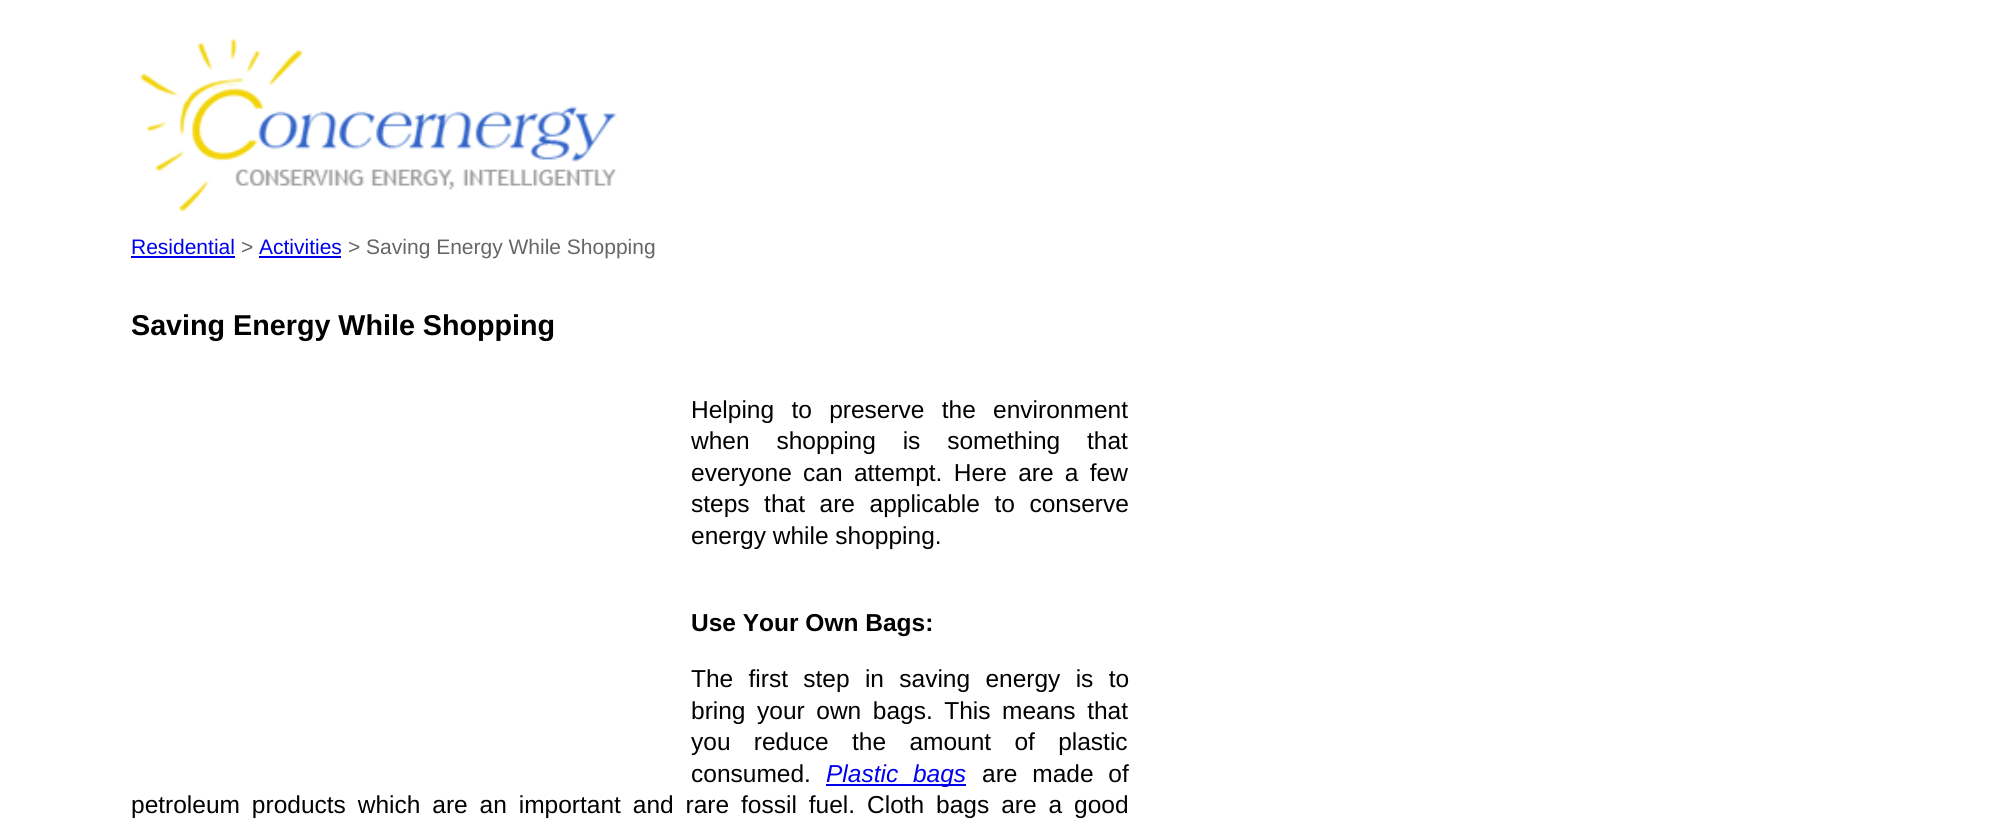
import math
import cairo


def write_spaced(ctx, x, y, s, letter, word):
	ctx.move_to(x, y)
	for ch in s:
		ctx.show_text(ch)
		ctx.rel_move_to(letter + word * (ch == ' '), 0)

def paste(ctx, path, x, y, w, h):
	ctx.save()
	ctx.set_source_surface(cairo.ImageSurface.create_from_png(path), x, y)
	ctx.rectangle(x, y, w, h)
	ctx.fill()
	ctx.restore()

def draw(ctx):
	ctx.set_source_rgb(1, 1, 1)
	ctx.paint()
	paste(ctx, 'media/1.png', 139, 38, 478, 175)
	ctx.select_font_face('Liberation Sans')
	ctx.set_font_size(21)
	ctx.set_source_rgb(0, 0, 0.933)
	ctx.move_to(131, 254)
	ctx.show_text('Residential')
	ctx.rectangle(131, 256, 104, 2)
	ctx.fill()
	ctx.set_source_rgb(0.4, 0.4, 0.4)
	ctx.move_to(241, 254)
	ctx.show_text('>')
	ctx.set_source_rgb(0, 0, 0.933)
	ctx.move_to(259, 254)
	ctx.show_text('Activities')
	ctx.rectangle(259, 256, 82, 2)
	ctx.fill()
	ctx.set_source_rgb(0.4, 0.4, 0.4)
	ctx.move_to(348, 254)
	ctx.show_text('> Saving Energy While Shopping')
	ctx.select_font_face('Liberation Sans', cairo.FONT_SLANT_NORMAL, cairo.FONT_WEIGHT_BOLD)
	ctx.set_font_size(28.7)
	ctx.set_source_rgb(0, 0, 0)
	ctx.move_to(131, 335)
	ctx.show_text('Saving Energy While Shopping')
	ctx.select_font_face('Liberation Sans')
	ctx.set_font_size(24.5)
	write_spaced(ctx, 691, 418, 'Helping to preserve the environment', 0, 10.5)
	write_spaced(ctx, 691, 449, 'when shopping is something that', 0, 20)
	write_spaced(ctx, 691, 481, 'everyone can attempt. Here are a few', 0, 4.5)
	write_spaced(ctx, 691, 512, 'steps that are applicable to conserve', 0, 7.75)
	ctx.move_to(691, 544)
	ctx.show_text('energy while shopping.')
	ctx.select_font_face('Liberation Sans', cairo.FONT_SLANT_NORMAL, cairo.FONT_WEIGHT_BOLD)
	ctx.move_to(691, 631)
	ctx.show_text('Use Your Own Bags:')
	ctx.select_font_face('Liberation Sans')
	write_spaced(ctx, 691, 687, 'The first step in saving energy is to', 0, 8.5)
	write_spaced(ctx, 691, 719, 'bring your own bags. This means that', 0, 4.75)
	write_spaced(ctx, 691, 750, 'you reduce the amount of plastic', 0, 16.5)
	ctx.move_to(691, 782)
	ctx.show_text('consumed.')
	ctx.set_source_rgb(0, 0, 0.933)
	ctx.rectangle(826, 784, 140, 2)
	ctx.fill()
	ctx.select_font_face('Liberation Sans', cairo.FONT_SLANT_ITALIC)
	write_spaced(ctx, 826, 782, 'Plastic bags', 0, 8)
	ctx.select_font_face('Liberation Sans')
	ctx.set_source_rgb(0, 0, 0)
	write_spaced(ctx, 982, 782, 'are made of', 0, 8)
	write_spaced(ctx, 131, 813, 'petroleum products which are an important and rare fossil fuel. Cloth bags are a good', 0, 5.1)


surface = cairo.ImageSurface(cairo.FORMAT_RGB24, 2013, 821)
ctx = cairo.Context(surface)
options = cairo.FontOptions()
options.set_hint_metrics(cairo.HINT_METRICS_OFF)
options.set_hint_style(cairo.HINT_STYLE_NONE)
ctx.set_font_options(options)
ctx.set_miter_limit(4)
draw(ctx)
surface.write_to_png('image.png')
